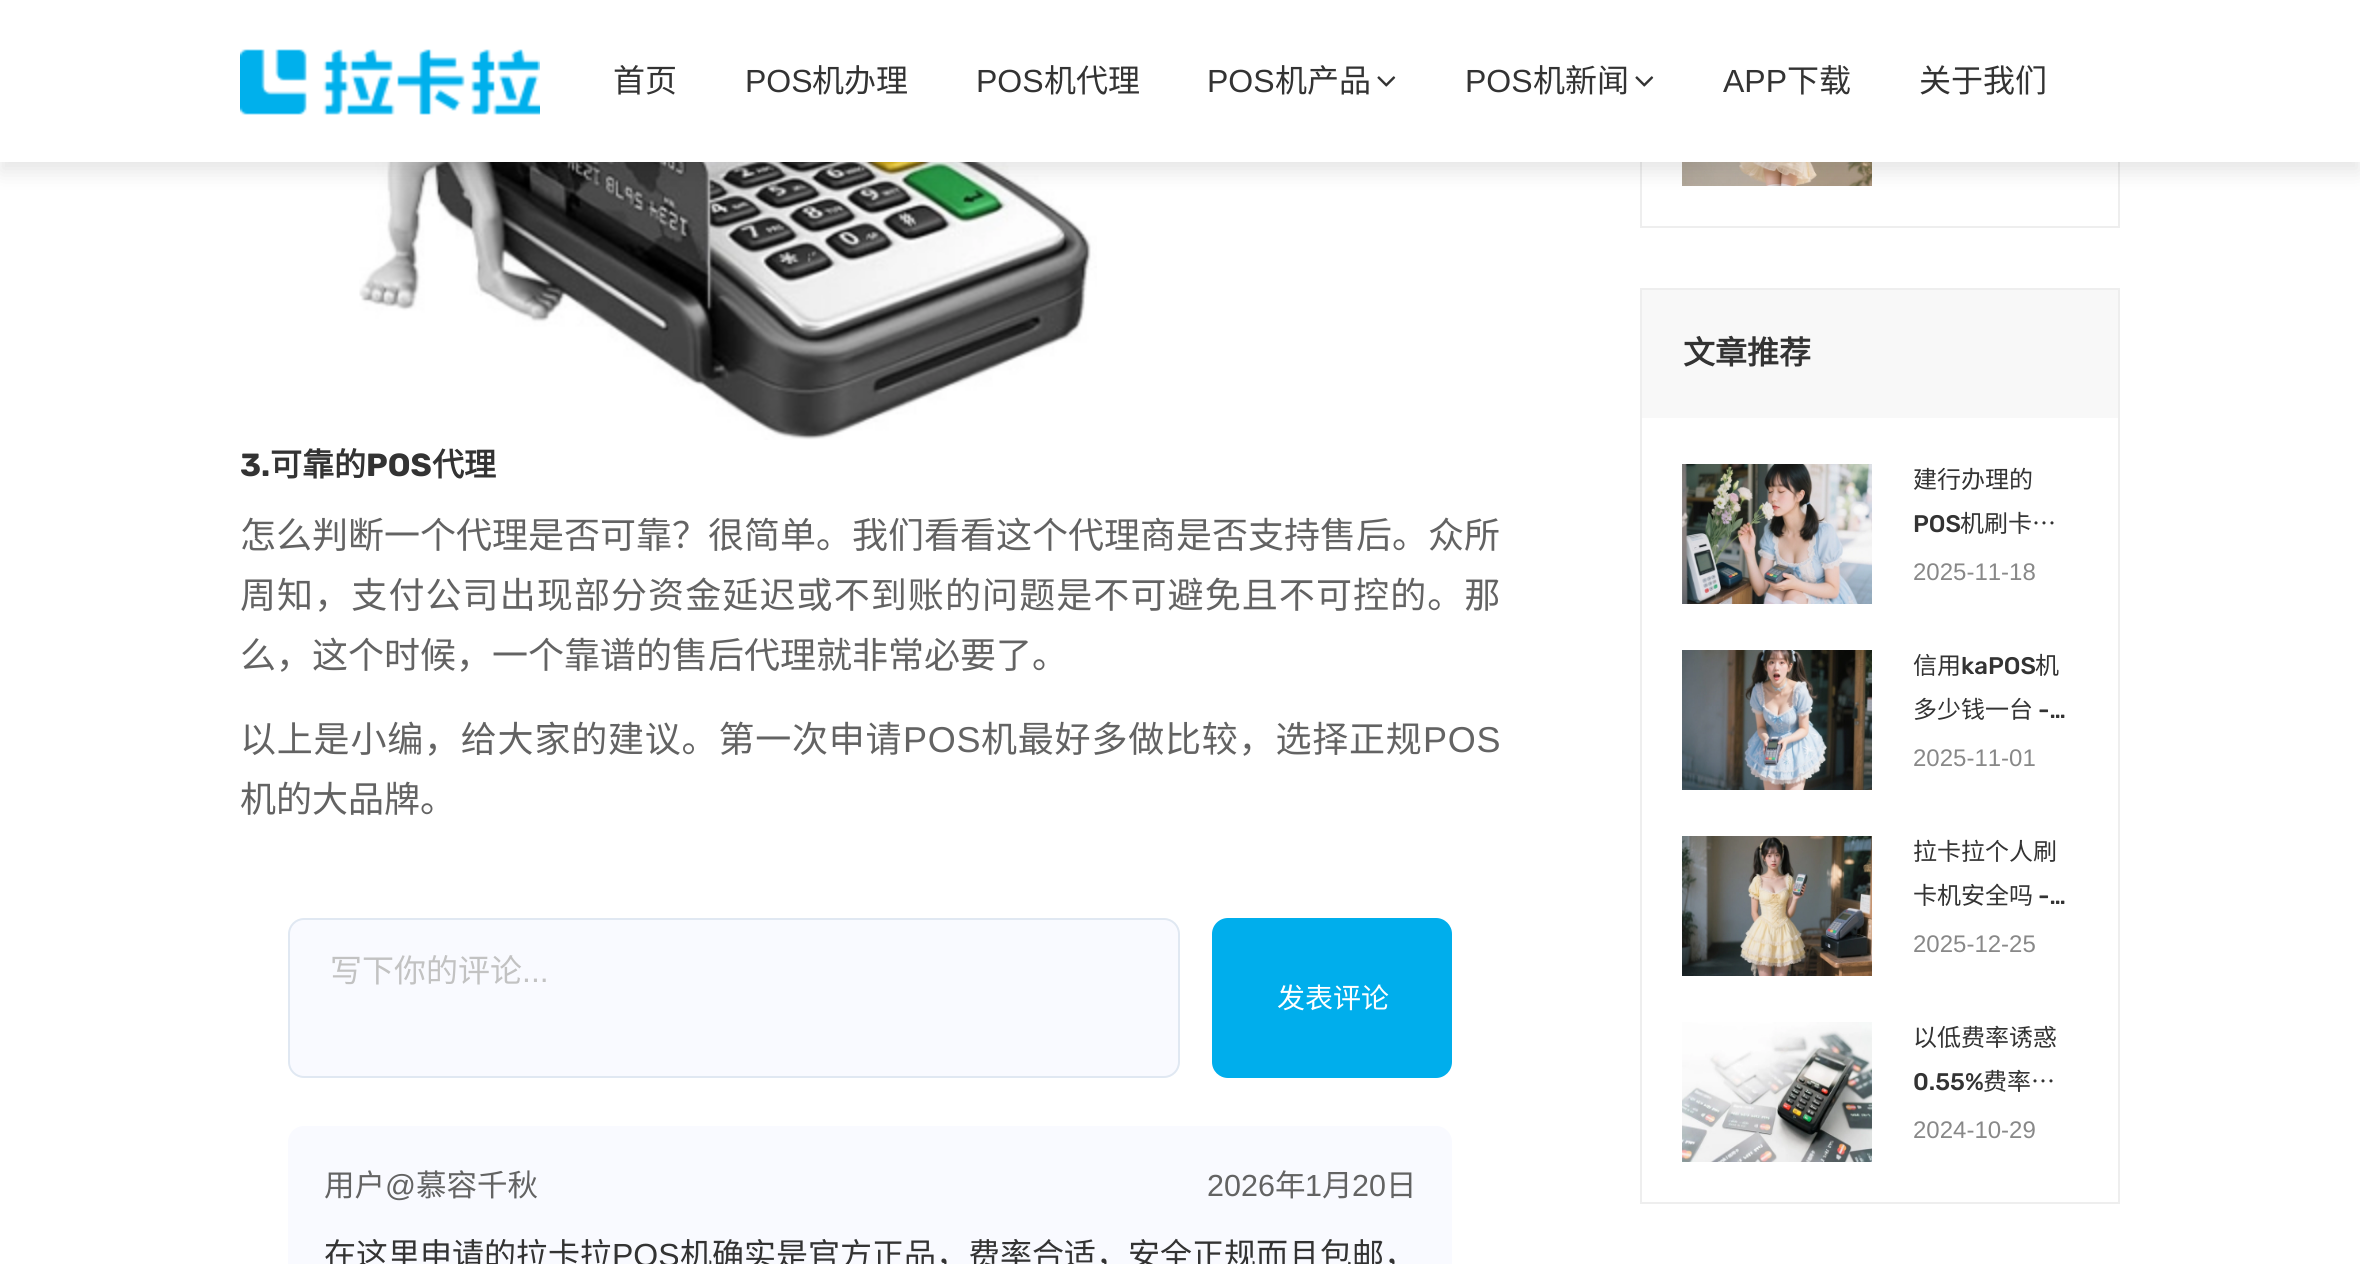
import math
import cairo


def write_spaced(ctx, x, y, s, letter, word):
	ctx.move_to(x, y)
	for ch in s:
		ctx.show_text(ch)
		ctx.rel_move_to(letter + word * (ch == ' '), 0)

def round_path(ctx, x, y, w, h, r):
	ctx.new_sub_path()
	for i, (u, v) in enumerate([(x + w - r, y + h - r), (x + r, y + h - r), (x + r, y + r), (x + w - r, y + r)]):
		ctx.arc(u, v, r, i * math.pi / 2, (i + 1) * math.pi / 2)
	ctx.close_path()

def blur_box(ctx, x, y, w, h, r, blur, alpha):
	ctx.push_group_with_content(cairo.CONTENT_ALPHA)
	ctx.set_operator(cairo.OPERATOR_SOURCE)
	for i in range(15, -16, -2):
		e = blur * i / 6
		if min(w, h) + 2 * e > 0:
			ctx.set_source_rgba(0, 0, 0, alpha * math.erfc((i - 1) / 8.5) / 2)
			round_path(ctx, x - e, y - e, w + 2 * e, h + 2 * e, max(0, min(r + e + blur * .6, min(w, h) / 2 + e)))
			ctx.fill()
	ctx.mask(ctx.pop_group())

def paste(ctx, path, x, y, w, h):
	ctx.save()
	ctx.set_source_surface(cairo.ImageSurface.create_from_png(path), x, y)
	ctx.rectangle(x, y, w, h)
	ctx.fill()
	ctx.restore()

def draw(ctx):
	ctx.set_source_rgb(1, 1, 1)
	ctx.paint()
	paste(ctx, 'media/3.png', 359, 162, 738, 278)
	ctx.rectangle(1641, -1, 478, 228)
	ctx.set_source_rgb(0.933, 0.933, 0.933)
	ctx.stroke()
	paste(ctx, 'media/4.png', 1682, 162, 190, 24)
	ctx.set_source_rgb(0, 0, 0)
	blur_box(ctx, 0, 10, 2360, 162, 0, 10, 0.1)
	ctx.set_source_rgb(1, 1, 1)
	ctx.rectangle(0, 0, 2360, 162)
	ctx.fill()
	paste(ctx, 'media/1.png', 240, 49, 300, 66)
	ctx.select_font_face('Noto Sans CJK SC')
	ctx.set_font_size(32)
	ctx.set_source_rgb(0.2, 0.2, 0.2)
	ctx.move_to(613, 92)
	ctx.show_text('首页')
	ctx.select_font_face('Liberation Sans')
	ctx.move_to(745, 92)
	ctx.show_text('POS')
	ctx.select_font_face('Noto Sans CJK SC')
	ctx.move_to(812, 92)
	ctx.show_text('机办理')
	ctx.select_font_face('Liberation Sans')
	ctx.move_to(976, 92)
	ctx.show_text('POS')
	ctx.select_font_face('Noto Sans CJK SC')
	ctx.move_to(1044, 92)
	ctx.show_text('机代理')
	ctx.select_font_face('Liberation Sans')
	ctx.move_to(1207, 92)
	ctx.show_text('POS')
	ctx.select_font_face('Noto Sans CJK SC')
	ctx.move_to(1275, 92)
	ctx.show_text('机产品')
	paste(ctx, 'media/2.png', 1377, 76, 19, 11)
	ctx.select_font_face('Liberation Sans')
	ctx.move_to(1465, 92)
	ctx.show_text('POS')
	ctx.select_font_face('Noto Sans CJK SC')
	ctx.move_to(1533, 92)
	ctx.show_text('机新闻')
	paste(ctx, 'media/2.png', 1635, 76, 19, 11)
	ctx.select_font_face('Liberation Sans')
	ctx.move_to(1723, 92)
	ctx.show_text('APP')
	ctx.select_font_face('Noto Sans CJK SC')
	ctx.move_to(1787, 92)
	ctx.show_text('下载')
	ctx.move_to(1919, 92)
	ctx.show_text('关于我们')
	ctx.select_font_face('Rubik', cairo.FONT_SLANT_NORMAL, cairo.FONT_WEIGHT_BOLD)
	ctx.move_to(240, 476)
	ctx.show_text('3.')
	ctx.select_font_face('Noto Sans CJK SC', cairo.FONT_SLANT_NORMAL, cairo.FONT_WEIGHT_BOLD)
	ctx.move_to(270, 476)
	ctx.show_text('可靠的')
	ctx.select_font_face('Rubik', cairo.FONT_SLANT_NORMAL, cairo.FONT_WEIGHT_BOLD)
	ctx.move_to(366, 476)
	ctx.show_text('POS')
	ctx.select_font_face('Noto Sans CJK SC', cairo.FONT_SLANT_NORMAL, cairo.FONT_WEIGHT_BOLD)
	ctx.move_to(432, 476)
	ctx.show_text('代理')
	ctx.select_font_face('Noto Sans CJK SC')
	ctx.set_font_size(36)
	ctx.set_source_rgb(0.388, 0.388, 0.388)
	ctx.move_to(240, 548)
	ctx.show_text('怎么判断一个代理是否可靠？很简单。我们看看这个代理商是否支持售后。众所')
	write_spaced(ctx, 240, 608, '周知，支付公司出现部分资金延迟或不到账的问题是不可避免且不可控的。那', 1.1, 0)
	ctx.move_to(240, 668)
	ctx.show_text('么，这个时候，一个靠谱的售后代理就非常必要了。')
	write_spaced(ctx, 240, 752, '以上是小编，给大家的建议。第一次申请', 0.8, 0)
	ctx.select_font_face('Liberation Sans')
	write_spaced(ctx, 903, 752, 'POS', 0.8, 0)
	ctx.select_font_face('Noto Sans CJK SC')
	write_spaced(ctx, 981, 752, '机最好多做比较，选择正规', 0.8, 0)
	ctx.select_font_face('Liberation Sans')
	write_spaced(ctx, 1423, 752, 'POS', 0.8, 0)
	ctx.select_font_face('Noto Sans CJK SC')
	ctx.move_to(240, 812)
	ctx.show_text('机的大品牌。')
	ctx.set_source_rgb(0.973, 0.98, 1)
	round_path(ctx, 289, 919, 890, 158, 15)
	ctx.fill_preserve()
	ctx.set_source_rgb(0.878, 0.91, 0.949)
	ctx.stroke()
	ctx.set_font_size(32)
	ctx.set_source_rgb(0.761, 0.761, 0.761)
	ctx.move_to(330, 982)
	ctx.show_text('写下你的评论')
	ctx.select_font_face('Liberation Sans')
	ctx.move_to(522, 982)
	ctx.show_text('...')
	ctx.set_source_rgb(0, 0.682, 0.925)
	round_path(ctx, 1212, 918, 240, 160, 16)
	ctx.fill()
	ctx.select_font_face('Noto Sans CJK SC')
	ctx.set_font_size(28)
	ctx.set_source_rgb(1, 1, 1)
	ctx.move_to(1277, 1008)
	ctx.show_text('发表评论')
	ctx.set_source_rgb(0.973, 0.98, 1)
	round_path(ctx, 288, 1126, 1164, 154, 16)
	ctx.fill()
	ctx.set_font_size(30.5)
	ctx.set_source_rgb(0.388, 0.388, 0.388)
	ctx.move_to(324, 1196)
	ctx.show_text('用户')
	ctx.select_font_face('Liberation Sans')
	ctx.move_to(385, 1196)
	ctx.show_text('@')
	ctx.select_font_face('Noto Sans CJK SC')
	ctx.move_to(416, 1196)
	ctx.show_text('慕容千秋')
	ctx.select_font_face('Liberation Sans')
	ctx.move_to(1207, 1196)
	ctx.show_text('2026')
	ctx.select_font_face('Noto Sans CJK SC')
	ctx.move_to(1275, 1196)
	ctx.show_text('年')
	ctx.select_font_face('Liberation Sans')
	ctx.move_to(1305, 1196)
	ctx.show_text('1')
	ctx.select_font_face('Noto Sans CJK SC')
	ctx.move_to(1322, 1196)
	ctx.show_text('月')
	ctx.select_font_face('Liberation Sans')
	ctx.move_to(1352, 1196)
	ctx.show_text('20')
	ctx.select_font_face('Noto Sans CJK SC')
	ctx.move_to(1386, 1196)
	ctx.show_text('日')
	ctx.set_font_size(32)
	ctx.set_source_rgb(0.2, 0.2, 0.2)
	ctx.move_to(324, 1266)
	ctx.show_text('在这里申请的拉卡拉')
	ctx.select_font_face('Liberation Sans')
	ctx.move_to(612, 1266)
	ctx.show_text('POS')
	ctx.select_font_face('Noto Sans CJK SC')
	ctx.move_to(680, 1266)
	ctx.show_text('机确实是官方正品，费率合适，安全正规而且包邮，')
	ctx.rectangle(1641, 289, 478, 914)
	ctx.set_source_rgb(0.933, 0.933, 0.933)
	ctx.stroke()
	ctx.set_source_rgb(0.969, 0.969, 0.969)
	ctx.rectangle(1642, 290, 476, 128)
	ctx.fill()
	ctx.select_font_face('Noto Sans CJK SC', cairo.FONT_SLANT_NORMAL, cairo.FONT_WEIGHT_BOLD)
	ctx.set_source_rgb(0.2, 0.2, 0.2)
	ctx.move_to(1683, 364)
	ctx.show_text('文章推荐')
	paste(ctx, 'media/5.png', 1682, 464, 190, 140)
	ctx.select_font_face('Noto Sans CJK SC')
	ctx.set_font_size(24)
	ctx.move_to(1913, 488)
	ctx.show_text('建行办理的')
	ctx.select_font_face('Rubik Medium')
	ctx.move_to(1913, 532)
	ctx.show_text('POS')
	ctx.select_font_face('Noto Sans CJK SC')
	ctx.move_to(1960, 532)
	ctx.show_text('机刷卡…')
	ctx.select_font_face('Liberation Sans')
	ctx.set_source_rgb(0.533, 0.533, 0.533)
	ctx.move_to(1913, 580)
	ctx.show_text('2025-11-18')
	paste(ctx, 'media/6.png', 1682, 650, 190, 140)
	ctx.select_font_face('Noto Sans CJK SC')
	ctx.set_source_rgb(0.2, 0.2, 0.2)
	ctx.move_to(1913, 674)
	ctx.show_text('信用')
	ctx.select_font_face('Rubik Medium')
	ctx.move_to(1961, 674)
	ctx.show_text('kaPOS')
	ctx.select_font_face('Noto Sans CJK SC')
	ctx.move_to(2035, 674)
	ctx.show_text('机')
	ctx.move_to(1913, 718)
	ctx.show_text('多少钱一台')
	ctx.select_font_face('Rubik Medium')
	ctx.move_to(2038, 718)
	ctx.show_text('-…')
	ctx.select_font_face('Liberation Sans')
	ctx.set_source_rgb(0.533, 0.533, 0.533)
	ctx.move_to(1913, 766)
	ctx.show_text('2025-11-01')
	paste(ctx, 'media/7.png', 1682, 836, 190, 140)
	ctx.select_font_face('Noto Sans CJK SC')
	ctx.set_source_rgb(0.2, 0.2, 0.2)
	ctx.move_to(1913, 860)
	ctx.show_text('拉卡拉个人刷')
	ctx.move_to(1913, 904)
	ctx.show_text('卡机安全吗')
	ctx.select_font_face('Rubik Medium')
	ctx.move_to(2038, 904)
	ctx.show_text('-…')
	ctx.select_font_face('Liberation Sans')
	ctx.set_source_rgb(0.533, 0.533, 0.533)
	ctx.move_to(1913, 952)
	ctx.show_text('2025-12-25')
	paste(ctx, 'media/8.png', 1682, 1022, 190, 140)
	ctx.select_font_face('Noto Sans CJK SC')
	ctx.set_source_rgb(0.2, 0.2, 0.2)
	ctx.move_to(1913, 1046)
	ctx.show_text('以低费率诱惑')
	ctx.select_font_face('Rubik Medium')
	ctx.move_to(1913, 1090)
	ctx.show_text('0.55%')
	ctx.select_font_face('Noto Sans CJK SC')
	ctx.move_to(1983, 1090)
	ctx.show_text('费率…')
	ctx.select_font_face('Liberation Sans')
	ctx.set_source_rgb(0.533, 0.533, 0.533)
	ctx.move_to(1913, 1138)
	ctx.show_text('2024-10-29')


surface = cairo.ImageSurface(cairo.FORMAT_RGB24, 2360, 1264)
ctx = cairo.Context(surface)
options = cairo.FontOptions()
options.set_hint_metrics(cairo.HINT_METRICS_OFF)
options.set_hint_style(cairo.HINT_STYLE_NONE)
ctx.set_font_options(options)
ctx.set_miter_limit(4)
draw(ctx)
surface.write_to_png('image.png')
